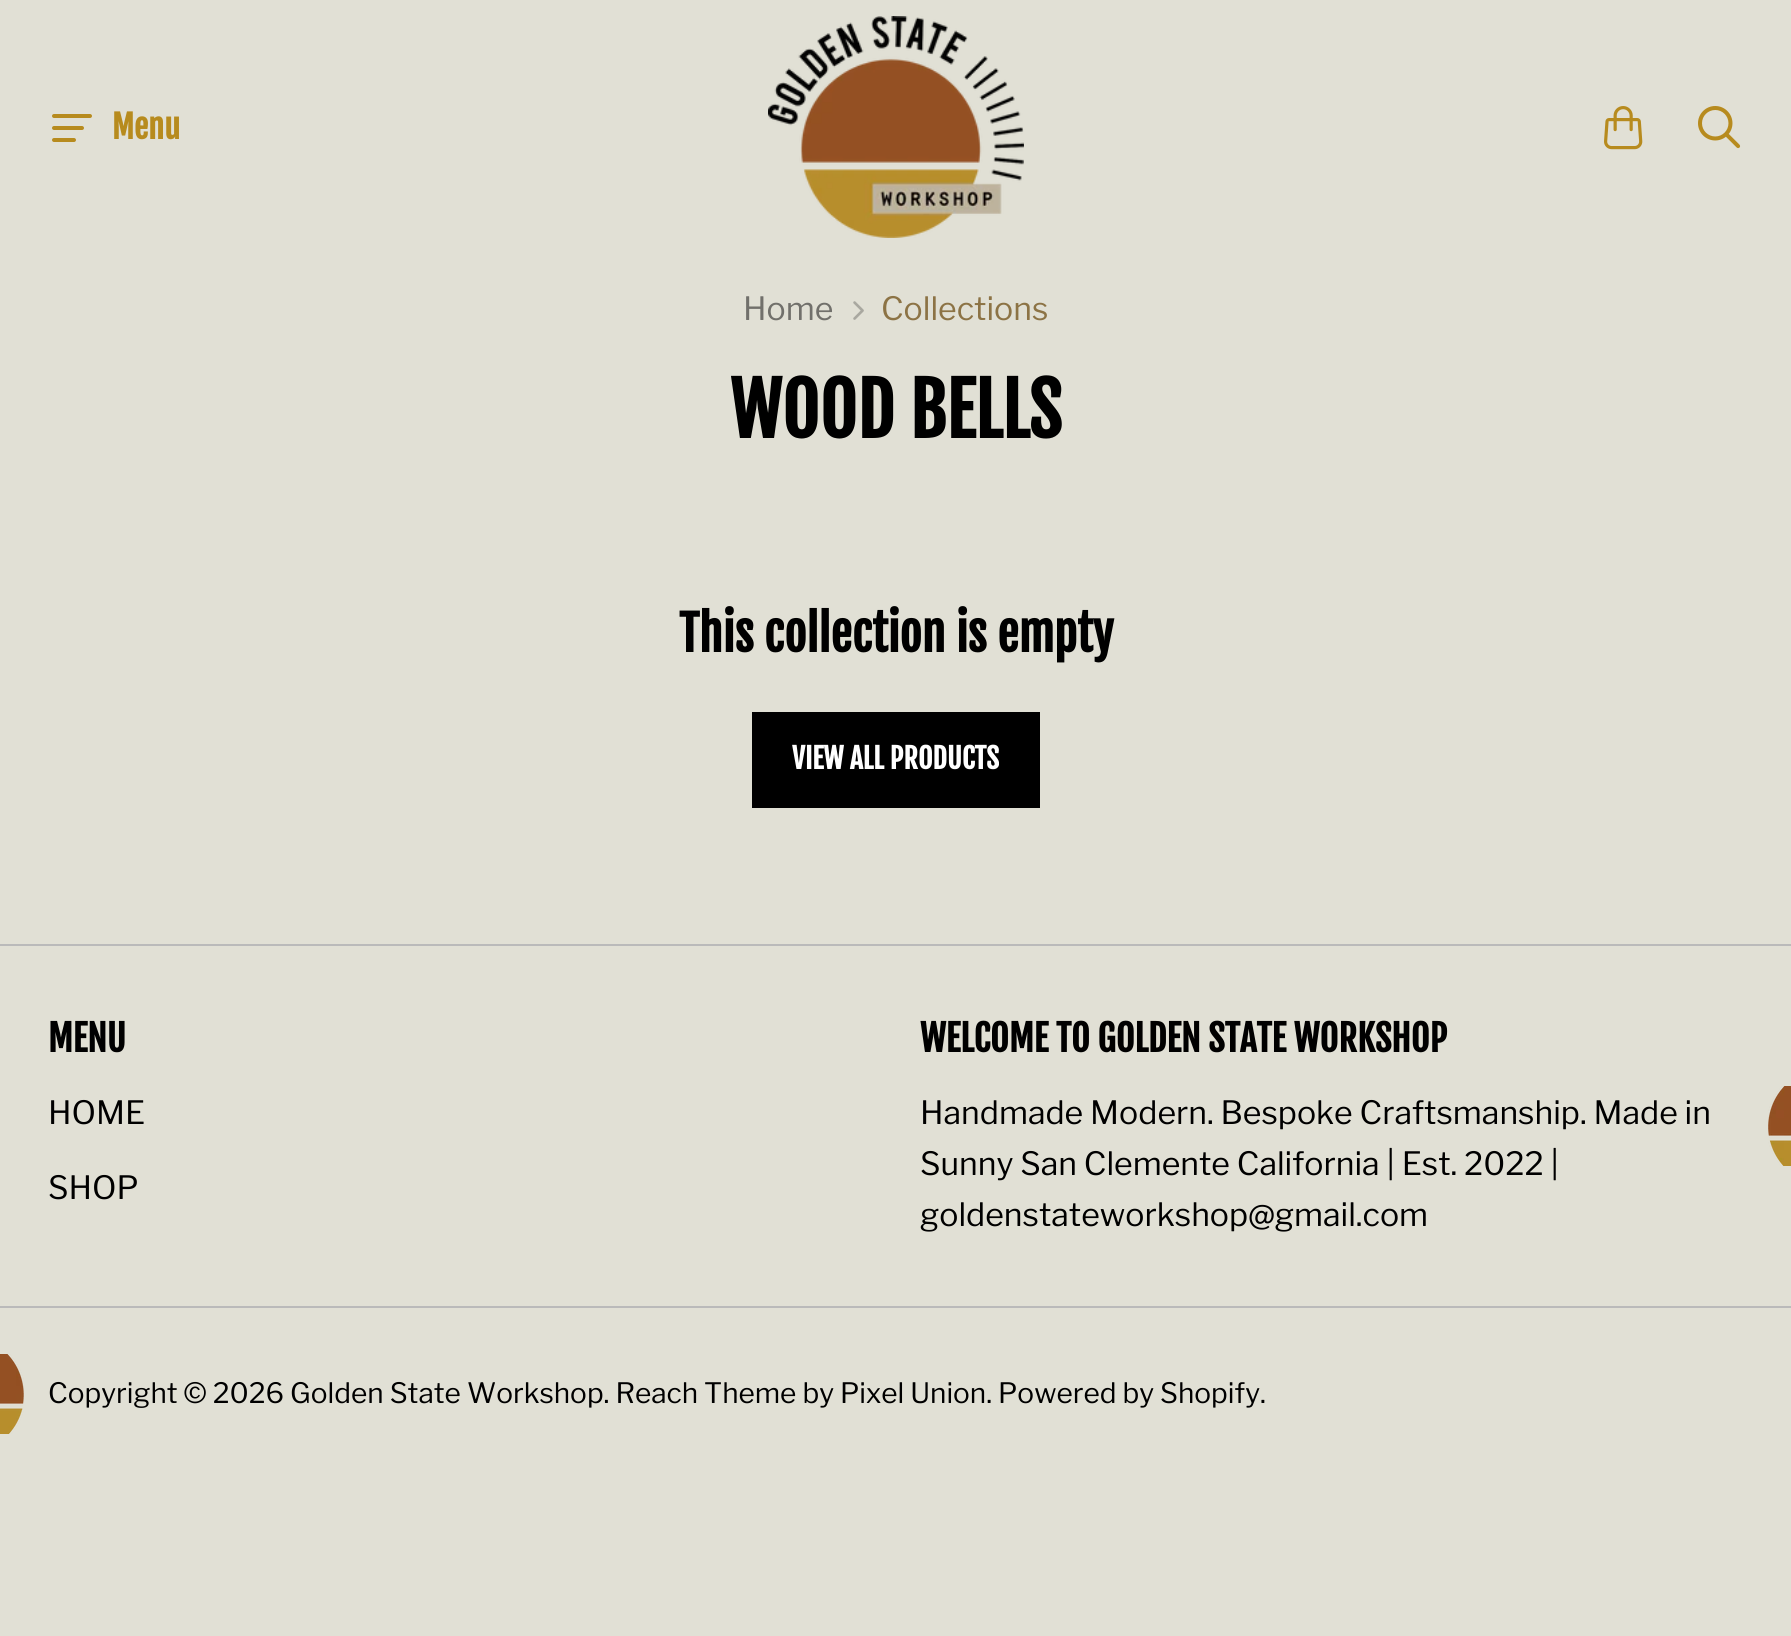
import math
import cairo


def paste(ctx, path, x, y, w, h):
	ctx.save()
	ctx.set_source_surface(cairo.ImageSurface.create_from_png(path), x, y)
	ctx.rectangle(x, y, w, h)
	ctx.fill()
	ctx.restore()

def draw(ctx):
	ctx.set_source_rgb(0.882, 0.878, 0.835)
	ctx.paint()
	paste(ctx, 'media/1.png', 52, 114, 40, 28)
	ctx.select_font_face('Fjalla One', cairo.FONT_SLANT_NORMAL, cairo.FONT_WEIGHT_BOLD)
	ctx.set_font_size(32)
	ctx.set_source_rgb(0.718, 0.545, 0.118)
	ctx.move_to(112, 139)
	ctx.show_text('Menu')
	paste(ctx, 'media/2.png', 768, 16, 256, 222)
	paste(ctx, 'media/3.png', 1604, 106, 39, 44)
	paste(ctx, 'media/4.png', 1698, 106, 43, 43)
	ctx.select_font_face('Libre Franklin')
	ctx.set_source_rgb(0.443, 0.439, 0.42)
	ctx.move_to(743, 320)
	ctx.show_text('Home')
	paste(ctx, 'media/5.png', 853, 301, 11, 19)
	ctx.set_source_rgb(0.549, 0.451, 0.271)
	ctx.move_to(881, 320)
	ctx.show_text('Collections')
	ctx.select_font_face('Fjalla One', cairo.FONT_SLANT_NORMAL, cairo.FONT_WEIGHT_BOLD)
	ctx.set_font_size(72)
	ctx.set_source_rgb(0, 0, 0)
	ctx.move_to(730, 438)
	ctx.show_text('WOOD BELLS')
	ctx.set_font_size(48)
	ctx.move_to(679, 652)
	ctx.show_text('This collection is empty')
	ctx.rectangle(752, 712, 288, 96)
	ctx.fill()
	ctx.set_font_size(28)
	ctx.set_source_rgb(1, 1, 1)
	ctx.move_to(792, 769)
	ctx.show_text('VIEW ALL PRODUCTS')
	ctx.set_source_rgb(0.729, 0.729, 0.729)
	ctx.rectangle(0, 944, 1791, 2)
	ctx.fill()
	ctx.set_font_size(36)
	ctx.set_source_rgb(0, 0, 0)
	ctx.move_to(48, 1052)
	ctx.show_text('MENU')
	ctx.select_font_face('Libre Franklin')
	ctx.set_font_size(32)
	ctx.move_to(48, 1124)
	ctx.show_text('HOME')
	ctx.move_to(48, 1199)
	ctx.show_text('SHOP')
	ctx.select_font_face('Fjalla One', cairo.FONT_SLANT_NORMAL, cairo.FONT_WEIGHT_BOLD)
	ctx.set_font_size(36)
	ctx.move_to(920, 1052)
	ctx.show_text('WELCOME TO GOLDEN STATE WORKSHOP')
	ctx.select_font_face('Libre Franklin')
	ctx.set_font_size(32)
	for x, y, s in [
		(920, 1124, 'Handmade Modern. Bespoke Craftsmanship. Made in'),
		(920, 1175, 'Sunny San Clemente California | Est. 2022 |'),
		(920, 1226, 'goldenstateworkshop@gmail.com'),
	]:
		ctx.move_to(x, y)
		ctx.show_text(s)
	paste(ctx, 'media/6.png', 1768, 1086, 23, 80)
	ctx.set_source_rgb(0.729, 0.729, 0.729)
	ctx.rectangle(0, 1306, 1791, 2)
	ctx.fill()
	paste(ctx, 'media/7.png', 0, 1354, 24, 80)
	ctx.set_font_size(28)
	ctx.set_source_rgb(0, 0, 0)
	ctx.move_to(48, 1403)
	ctx.show_text('Copyright © 2026 Golden State Workshop. Reach Theme by Pixel Union. Powered by Shopify.')


surface = cairo.ImageSurface(cairo.FORMAT_RGB24, 1791, 1636)
ctx = cairo.Context(surface)
options = cairo.FontOptions()
options.set_hint_metrics(cairo.HINT_METRICS_OFF)
options.set_hint_style(cairo.HINT_STYLE_NONE)
ctx.set_font_options(options)
ctx.set_miter_limit(4)
draw(ctx)
surface.write_to_png('image.png')
